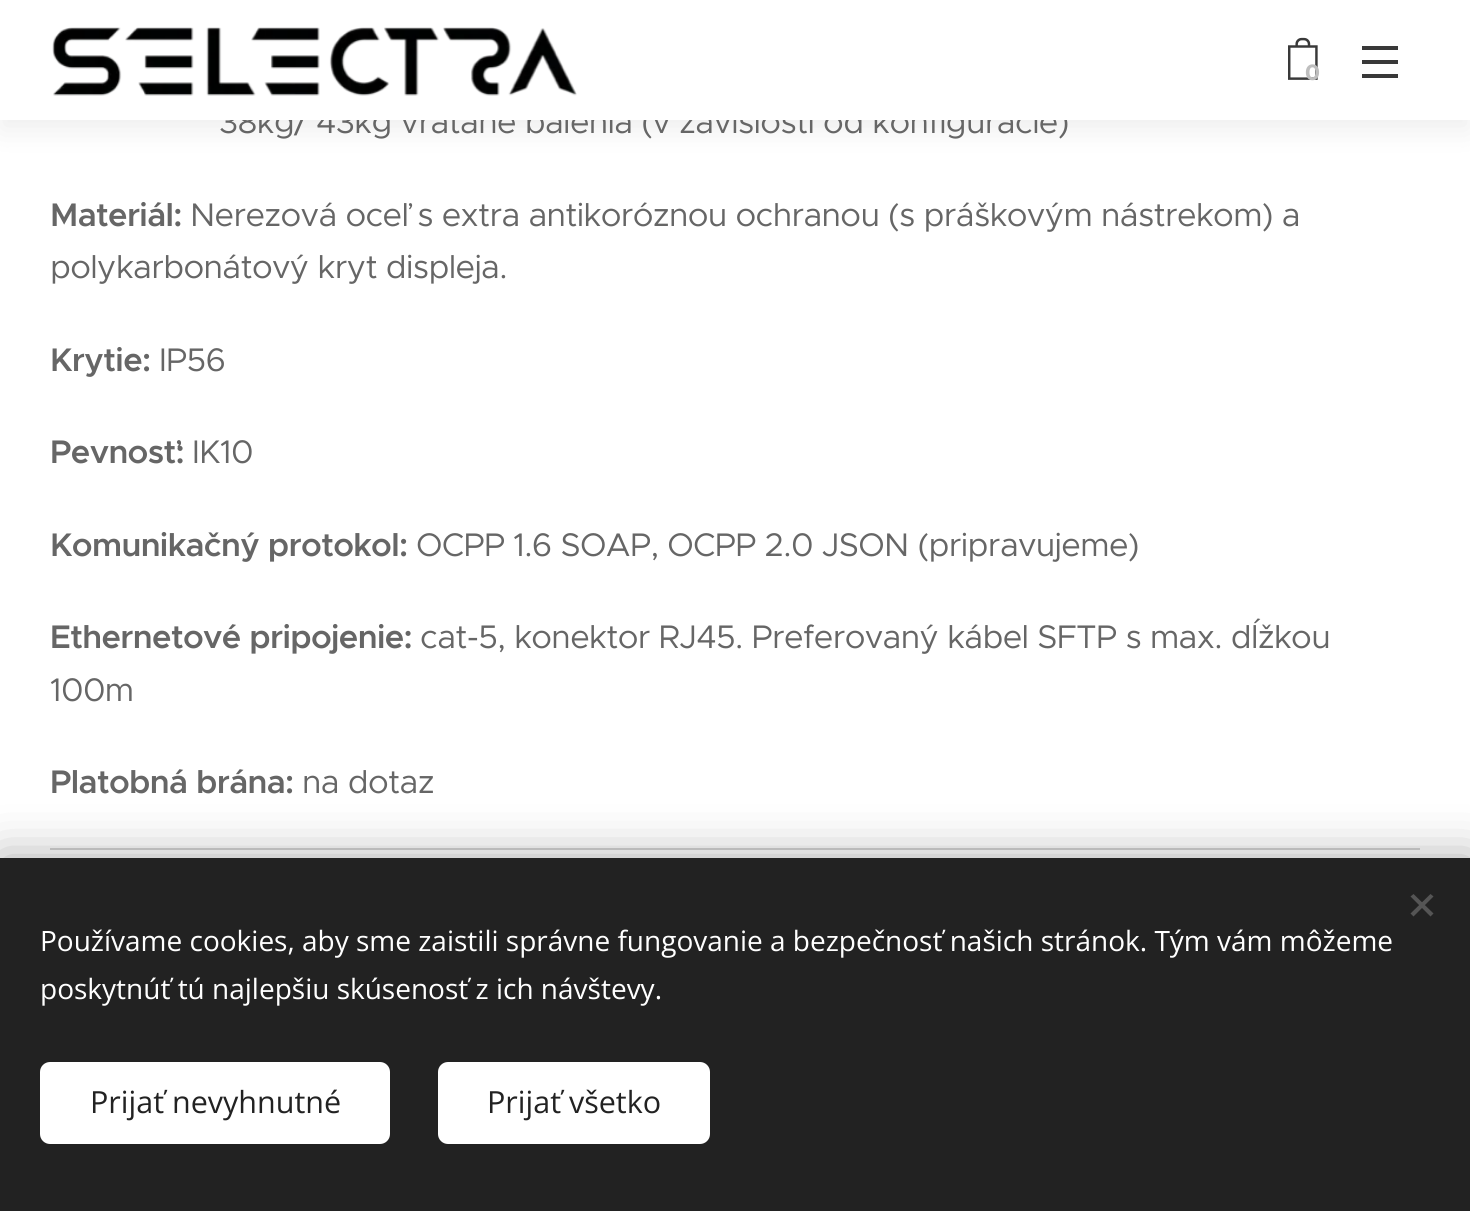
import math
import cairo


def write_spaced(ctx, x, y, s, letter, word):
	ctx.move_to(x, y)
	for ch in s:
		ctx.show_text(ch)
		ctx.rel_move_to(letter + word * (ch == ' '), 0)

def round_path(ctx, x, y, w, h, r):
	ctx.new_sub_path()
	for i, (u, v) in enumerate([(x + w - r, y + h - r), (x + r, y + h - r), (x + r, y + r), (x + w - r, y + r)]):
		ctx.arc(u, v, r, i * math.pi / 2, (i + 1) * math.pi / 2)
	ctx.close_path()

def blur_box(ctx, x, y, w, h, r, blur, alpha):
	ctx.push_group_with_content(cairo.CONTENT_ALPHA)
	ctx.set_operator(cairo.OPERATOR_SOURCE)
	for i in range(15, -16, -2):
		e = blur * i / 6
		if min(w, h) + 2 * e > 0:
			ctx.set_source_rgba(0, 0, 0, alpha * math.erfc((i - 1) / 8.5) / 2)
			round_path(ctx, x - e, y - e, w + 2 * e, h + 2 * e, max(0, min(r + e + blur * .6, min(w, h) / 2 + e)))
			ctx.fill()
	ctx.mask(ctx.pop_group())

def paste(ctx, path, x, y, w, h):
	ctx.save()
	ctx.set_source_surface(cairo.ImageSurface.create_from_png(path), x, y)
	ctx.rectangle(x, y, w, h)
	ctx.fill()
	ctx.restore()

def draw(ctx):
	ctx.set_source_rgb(1, 1, 1)
	ctx.paint()
	ctx.set_source_rgb(0, 0, 0)
	blur_box(ctx, 0, 10, 1470, 120, 0, 15, 0.07)
	ctx.select_font_face('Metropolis')
	ctx.set_font_size(32.8)
	ctx.set_source_rgb(0.4, 0.4, 0.4)
	write_spaced(ctx, 219, 133, '38kg/ 43kg vrátane balenia (v závislosti od konfigurácie)', -0.65, 0)
	ctx.set_source_rgb(1, 1, 1)
	ctx.rectangle(0, 0, 1470, 120)
	ctx.fill()
	paste(ctx, 'media/1.png', 52, 27, 525, 69)
	paste(ctx, 'media/2.png', 1288, 37, 30, 43)
	ctx.select_font_face('Montserrat', cairo.FONT_SLANT_NORMAL, cairo.FONT_WEIGHT_BOLD)
	ctx.set_font_size(22)
	ctx.set_source_rgb(0.745, 0.745, 0.745)
	ctx.move_to(1305, 80)
	ctx.show_text('0')
	ctx.set_source_rgb(0.224, 0.224, 0.224)
	ctx.rectangle(1362, 60, 36, 4)
	ctx.rectangle(1362, 46, 36, 4)
	ctx.rectangle(1362, 74, 36, 4)
	ctx.fill()
	ctx.select_font_face('Metropolis SemiBold')
	ctx.set_font_size(32.8)
	ctx.set_source_rgb(0.4, 0.4, 0.4)
	write_spaced(ctx, 50, 226, 'Materiál:', -0.65, 0)
	ctx.select_font_face('Metropolis')
	write_spaced(ctx, 190, 226, 'Nerezová oceľ s extra antikoróznou ochranou (s práškovým nástrekom) a', -0.65, 0)
	write_spaced(ctx, 50, 278, 'polykarbonátový kryt displeja.', -0.65, 0)
	ctx.select_font_face('Metropolis SemiBold')
	write_spaced(ctx, 50, 371, 'Krytie:', -0.65, 0)
	ctx.select_font_face('Metropolis')
	write_spaced(ctx, 159, 371, 'IP56', -0.65, 0)
	ctx.select_font_face('Metropolis SemiBold')
	write_spaced(ctx, 50, 463, 'Pevnosť:', -0.65, 0)
	ctx.select_font_face('Metropolis')
	write_spaced(ctx, 192, 463, 'IK10', -0.65, 0)
	ctx.select_font_face('Metropolis SemiBold')
	write_spaced(ctx, 50, 556, 'Komunikačný protokol:', -0.65, 0)
	ctx.select_font_face('Metropolis')
	write_spaced(ctx, 416, 556, 'OCPP 1.6 SOAP, OCPP 2.0 JSON (pripravujeme)', -0.65, 0)
	ctx.select_font_face('Metropolis SemiBold')
	write_spaced(ctx, 50, 648, 'Ethernetové pripojenie:', -0.65, 0)
	ctx.select_font_face('Metropolis')
	write_spaced(ctx, 420, 648, 'cat-5, konektor RJ45. Preferovaný kábel SFTP s max. dĺžkou', -0.65, 0)
	write_spaced(ctx, 50, 701, '100m', -0.65, 0)
	ctx.select_font_face('Metropolis SemiBold')
	write_spaced(ctx, 50, 793, 'Platobná brána:', -0.65, 0)
	ctx.select_font_face('Metropolis')
	write_spaced(ctx, 302, 793, 'na dotaz', -0.65, 0)
	ctx.set_source_rgb(0.831, 0.831, 0.831)
	ctx.rectangle(50, 848, 1370, 2)
	ctx.fill()
	ctx.set_source_rgb(0, 0, 0)
	blur_box(ctx, 0, 858, 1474, 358, 0, 25, 0.33)
	ctx.set_source_rgb(0.133, 0.133, 0.133)
	ctx.rectangle(0, 858, 1470, 353)
	ctx.fill()
	ctx.set_source_rgb(0.333, 0.333, 0.333)
	ctx.new_path()
	ctx.move_to(1410.5, 913.5)
	ctx.line_to(1430.5, 894)
	ctx.line_to(1433.5, 896.5)
	ctx.line_to(1413.5, 916.5)
	ctx.close_path()
	ctx.fill()
	ctx.new_path()
	ctx.move_to(1413.5, 894)
	ctx.line_to(1433.5, 913.5)
	ctx.line_to(1430.5, 916.5)
	ctx.line_to(1410.5, 896.5)
	ctx.close_path()
	ctx.fill()
	ctx.select_font_face('Open Sans')
	ctx.set_font_size(28)
	ctx.set_source_rgb(1, 1, 1)
	ctx.move_to(40, 951)
	ctx.show_text('Používame cookies, aby sme zaistili správne fungovanie a bezpečnosť našich stránok. Tým vám môžeme')
	ctx.move_to(40, 999)
	ctx.show_text('poskytnúť tú najlepšiu skúsenosť z ich návštevy.')
	round_path(ctx, 40, 1062, 350, 82, 10)
	ctx.fill()
	ctx.set_font_size(30.5)
	ctx.set_source_rgb(0.133, 0.133, 0.133)
	ctx.move_to(90, 1113)
	ctx.show_text('Prijať nevyhnutné')
	ctx.set_source_rgb(1, 1, 1)
	round_path(ctx, 438, 1062, 272, 82, 10)
	ctx.fill()
	ctx.set_source_rgb(0.133, 0.133, 0.133)
	ctx.move_to(487, 1113)
	ctx.show_text('Prijať všetko')


surface = cairo.ImageSurface(cairo.FORMAT_RGB24, 1470, 1211)
ctx = cairo.Context(surface)
options = cairo.FontOptions()
options.set_hint_metrics(cairo.HINT_METRICS_OFF)
options.set_hint_style(cairo.HINT_STYLE_NONE)
ctx.set_font_options(options)
ctx.set_miter_limit(4)
draw(ctx)
surface.write_to_png('image.png')
